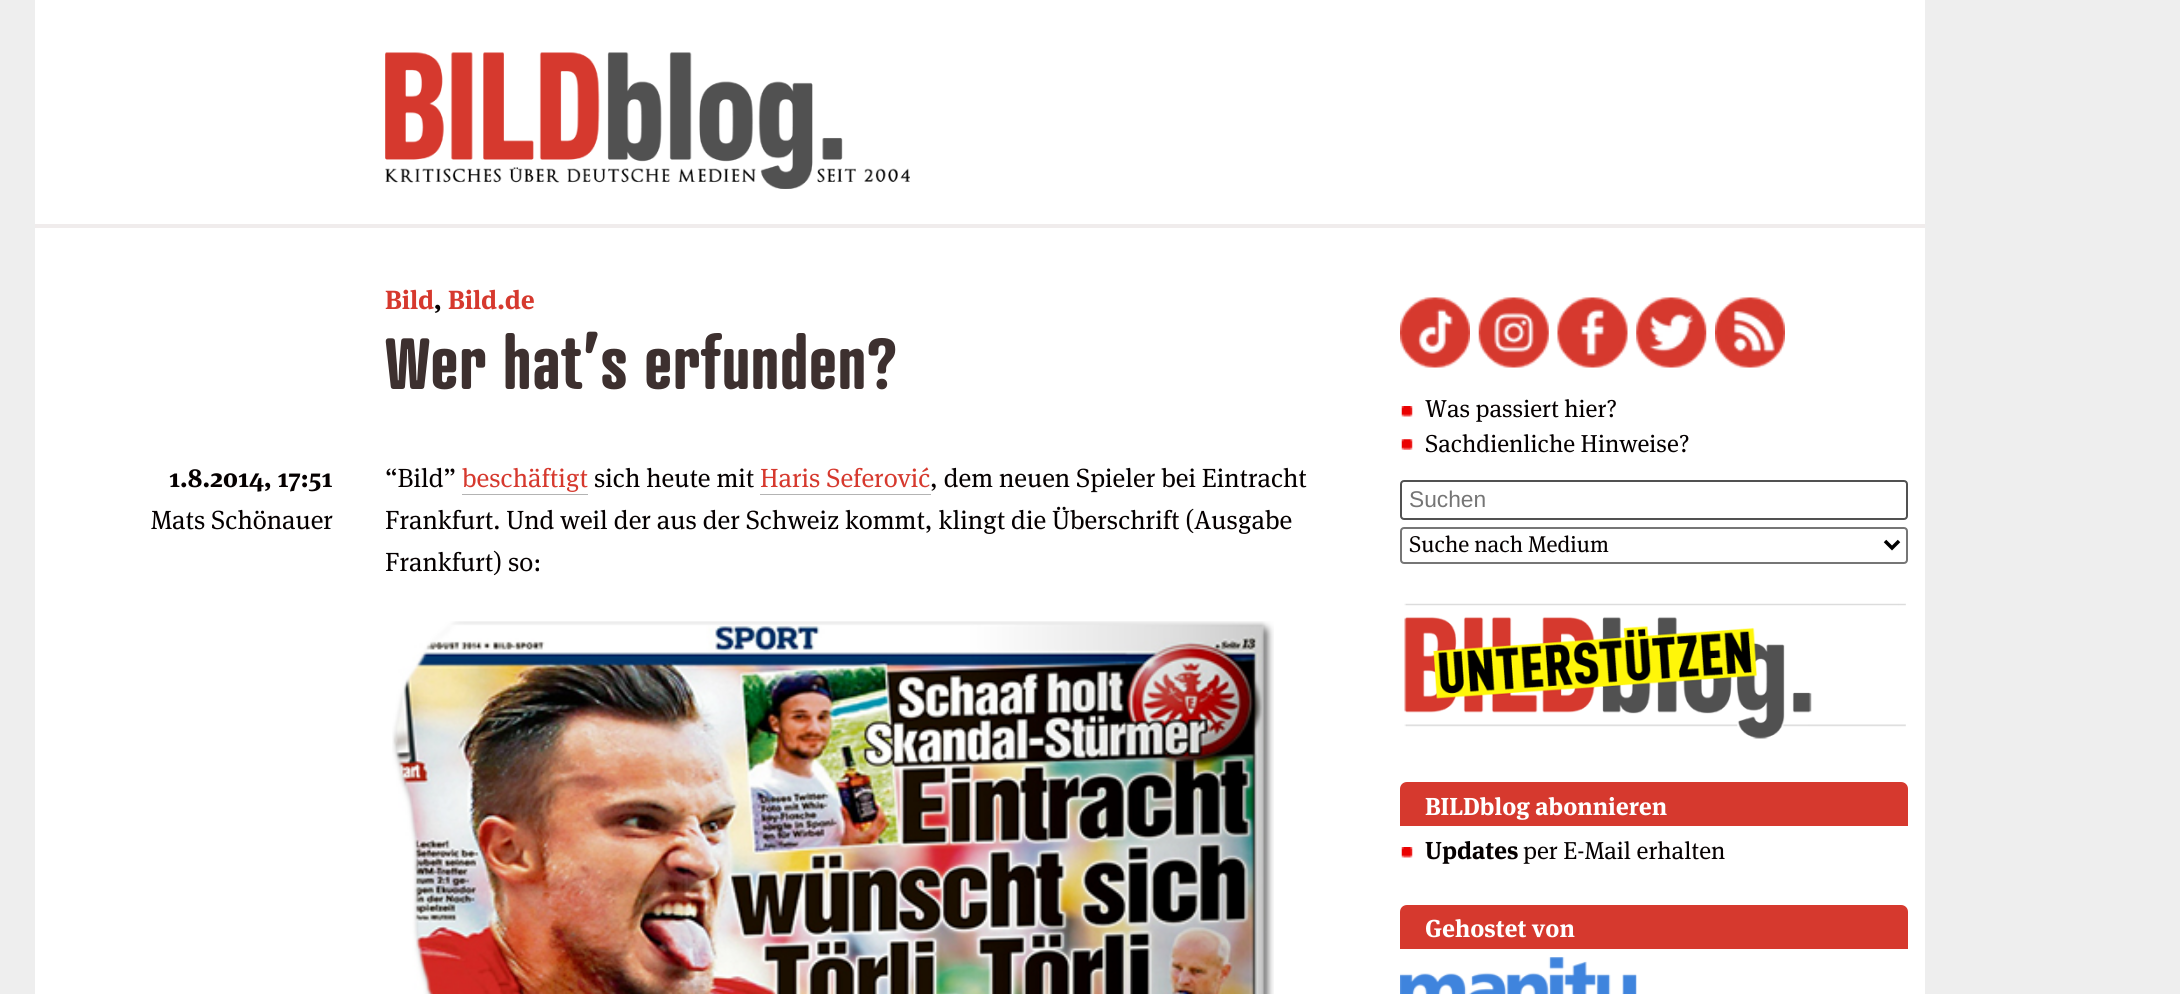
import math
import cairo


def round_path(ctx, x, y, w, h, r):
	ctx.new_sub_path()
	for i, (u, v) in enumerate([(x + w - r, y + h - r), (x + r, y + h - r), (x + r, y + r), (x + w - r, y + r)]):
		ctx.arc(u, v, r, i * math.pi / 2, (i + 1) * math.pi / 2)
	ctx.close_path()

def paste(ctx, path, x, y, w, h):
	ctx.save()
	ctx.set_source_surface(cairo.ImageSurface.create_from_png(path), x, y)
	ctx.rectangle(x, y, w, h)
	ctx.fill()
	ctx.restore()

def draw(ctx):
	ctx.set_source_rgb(0.933, 0.933, 0.933)
	ctx.paint()
	ctx.set_source_rgb(1, 1, 1)
	ctx.rectangle(35, 0, 1890, 994)
	ctx.fill()
	paste(ctx, 'media/1.png', 385, 52, 525, 137)
	ctx.set_source_rgb(0.941, 0.925, 0.922)
	ctx.rectangle(35, 224, 1890, 4)
	ctx.fill()
	ctx.select_font_face('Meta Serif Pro', cairo.FONT_SLANT_NORMAL, cairo.FONT_WEIGHT_BOLD)
	ctx.set_font_size(26.25)
	ctx.set_source_rgb(0.839, 0.224, 0.18)
	ctx.move_to(385, 309)
	ctx.show_text('Bild')
	ctx.set_source_rgb(0.02, 0, 0)
	ctx.move_to(434, 309)
	ctx.show_text(',')
	ctx.set_source_rgb(0.839, 0.224, 0.18)
	ctx.move_to(448, 309)
	ctx.show_text('Bild.de')
	ctx.select_font_face('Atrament', cairo.FONT_SLANT_NORMAL, cairo.FONT_WEIGHT_BOLD)
	ctx.set_font_size(70)
	ctx.set_source_rgb(0.239, 0.188, 0.184)
	ctx.move_to(385, 389)
	ctx.show_text('Wer hat’s erfunden?')
	ctx.select_font_face('Meta Serif Pro', cairo.FONT_SLANT_NORMAL, cairo.FONT_WEIGHT_BOLD)
	ctx.set_font_size(26.25)
	ctx.set_source_rgb(0.02, 0, 0)
	ctx.move_to(169, 487)
	ctx.show_text('1.8.2014, 17:51')
	ctx.select_font_face('Meta Serif Pro')
	ctx.move_to(151, 529)
	ctx.show_text('Mats Schönauer')
	ctx.move_to(385, 487)
	ctx.show_text('“Bild”')
	ctx.set_source_rgb(0.839, 0.224, 0.18)
	ctx.move_to(462, 487)
	ctx.show_text('beschäftigt')
	ctx.set_source_rgb(0.702, 0.702, 0.702)
	ctx.rectangle(462, 494, 126, 1)
	ctx.fill()
	ctx.set_source_rgb(0.02, 0, 0)
	ctx.move_to(594, 487)
	ctx.show_text('sich heute mit')
	ctx.set_source_rgb(0.839, 0.224, 0.18)
	ctx.move_to(760, 487)
	ctx.show_text('Haris Seferović')
	ctx.set_source_rgb(0.702, 0.702, 0.702)
	ctx.rectangle(760, 494, 171, 1)
	ctx.fill()
	ctx.set_source_rgb(0.02, 0, 0)
	for x, y, s in [
		(930, 487, ', dem neuen Spieler bei Eintracht'),
		(385, 529, 'Frankfurt. Und weil der aus der Schweiz kommt, klingt die Überschrift (Ausgabe'),
		(385, 571, 'Frankfurt) so:'),
	]:
		ctx.move_to(x, y)
		ctx.show_text(s)
	paste(ctx, 'media/2.png', 392, 621, 882, 373)
	paste(ctx, 'media/3.png', 1400, 297, 70, 71)
	paste(ctx, 'media/4.png', 1478, 297, 71, 71)
	paste(ctx, 'media/5.png', 1557, 297, 71, 71)
	paste(ctx, 'media/6.png', 1636, 297, 71, 71)
	paste(ctx, 'media/7.png', 1715, 297, 70, 71)
	paste(ctx, 'media/8.png', 1401, 406, 12, 11)
	ctx.set_font_size(24.5)
	ctx.move_to(1425, 417)
	ctx.show_text('Was passiert hier?')
	paste(ctx, 'media/9.png', 1401, 439, 12, 11)
	ctx.move_to(1425, 452)
	ctx.show_text('Sachdienliche Hinweise?')
	round_path(ctx, 1401, 481, 506, 38, 3)
	ctx.set_source_rgb(0.318, 0.318, 0.318)
	ctx.stroke()
	ctx.select_font_face('Liberation Sans')
	ctx.set_font_size(22.75)
	ctx.set_source_rgb(0.459, 0.459, 0.459)
	ctx.move_to(1409, 507)
	ctx.show_text('Suchen')
	round_path(ctx, 1401, 528, 506, 35, 3)
	ctx.set_source_rgb(0.463, 0.463, 0.463)
	ctx.stroke()
	ctx.new_path()
	ctx.move_to(1885, 541)
	ctx.line_to(1892, 548)
	ctx.line_to(1899, 541)
	ctx.set_source_rgb(0, 0, 0)
	ctx.set_line_width(3.5)
	ctx.stroke()
	ctx.select_font_face('Meta Serif Pro')
	ctx.set_source_rgb(0.02, 0, 0)
	ctx.move_to(1409, 552)
	ctx.show_text('Suche nach Medium')
	paste(ctx, 'media/10.png', 1404, 603, 502, 136)
	ctx.set_source_rgb(0.839, 0.224, 0.18)
	ctx.new_path()
	ctx.move_to(1407, 782)
	ctx.line_to(1901, 782)
	ctx.curve_to(1905, 782, 1908, 785, 1908, 789)
	ctx.line_to(1908, 826)
	ctx.line_to(1400, 826)
	ctx.line_to(1400, 789)
	ctx.curve_to(1400, 785, 1403, 782, 1407, 782)
	ctx.close_path()
	ctx.fill()
	ctx.select_font_face('Meta Serif Pro', cairo.FONT_SLANT_NORMAL, cairo.FONT_WEIGHT_BOLD)
	ctx.set_font_size(24.5)
	ctx.set_source_rgb(1, 1, 1)
	ctx.move_to(1425, 815)
	ctx.show_text('BILDblog abonnieren')
	paste(ctx, 'media/8.png', 1401, 847, 12, 11)
	ctx.set_source_rgb(0.02, 0, 0)
	ctx.move_to(1425, 859)
	ctx.show_text('Updates')
	ctx.select_font_face('Meta Serif Pro')
	ctx.move_to(1523, 859)
	ctx.show_text('per E-Mail erhalten')
	ctx.set_source_rgb(0.839, 0.224, 0.18)
	ctx.new_path()
	ctx.move_to(1407, 905)
	ctx.line_to(1901, 905)
	ctx.curve_to(1905, 905, 1908, 908, 1908, 912)
	ctx.line_to(1908, 949)
	ctx.line_to(1400, 949)
	ctx.line_to(1400, 912)
	ctx.curve_to(1400, 908, 1403, 905, 1407, 905)
	ctx.close_path()
	ctx.fill()
	ctx.select_font_face('Meta Serif Pro', cairo.FONT_SLANT_NORMAL, cairo.FONT_WEIGHT_BOLD)
	ctx.set_source_rgb(1, 1, 1)
	ctx.move_to(1425, 937)
	ctx.show_text('Gehostet von')
	paste(ctx, 'media/11.png', 1400, 957, 237, 37)


surface = cairo.ImageSurface(cairo.FORMAT_RGB24, 2180, 994)
ctx = cairo.Context(surface)
options = cairo.FontOptions()
options.set_hint_metrics(cairo.HINT_METRICS_OFF)
options.set_hint_style(cairo.HINT_STYLE_NONE)
ctx.set_font_options(options)
ctx.set_miter_limit(4)
draw(ctx)
surface.write_to_png('image.png')
